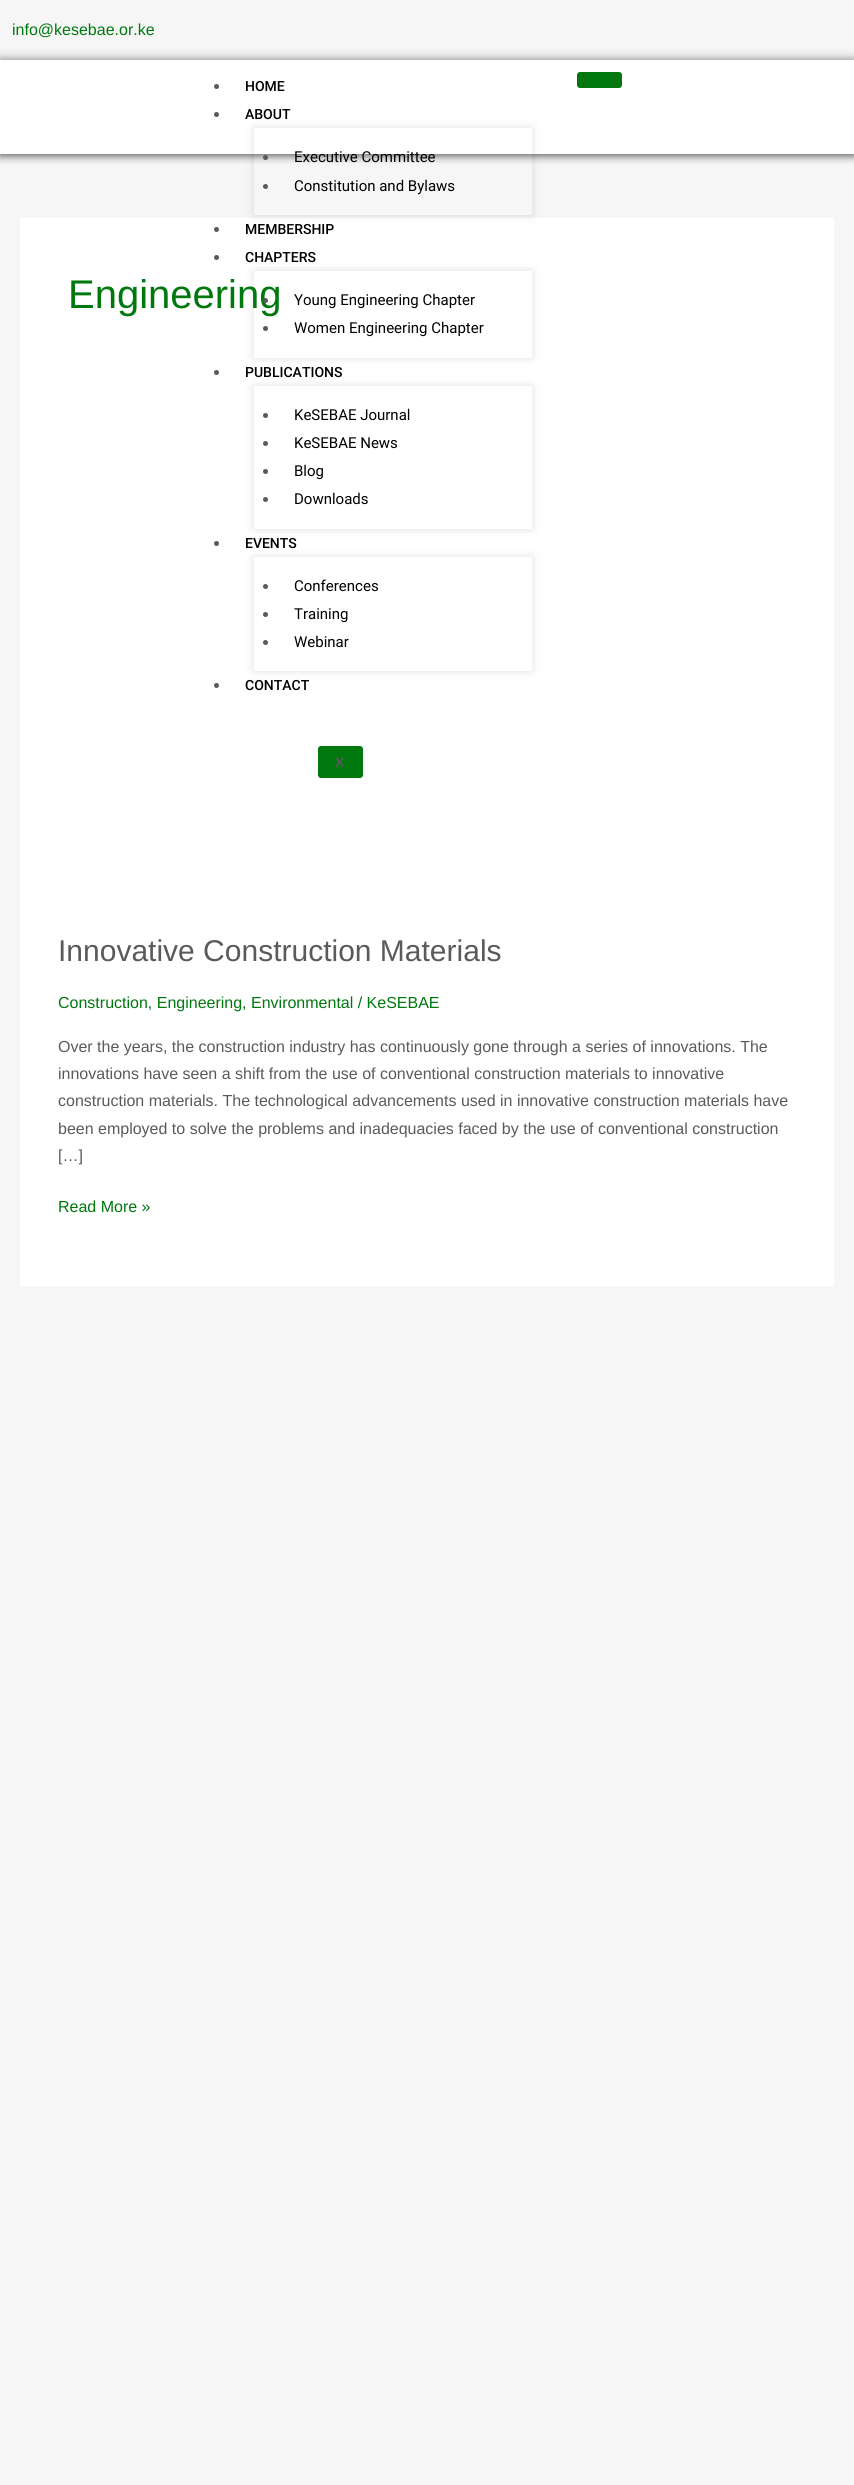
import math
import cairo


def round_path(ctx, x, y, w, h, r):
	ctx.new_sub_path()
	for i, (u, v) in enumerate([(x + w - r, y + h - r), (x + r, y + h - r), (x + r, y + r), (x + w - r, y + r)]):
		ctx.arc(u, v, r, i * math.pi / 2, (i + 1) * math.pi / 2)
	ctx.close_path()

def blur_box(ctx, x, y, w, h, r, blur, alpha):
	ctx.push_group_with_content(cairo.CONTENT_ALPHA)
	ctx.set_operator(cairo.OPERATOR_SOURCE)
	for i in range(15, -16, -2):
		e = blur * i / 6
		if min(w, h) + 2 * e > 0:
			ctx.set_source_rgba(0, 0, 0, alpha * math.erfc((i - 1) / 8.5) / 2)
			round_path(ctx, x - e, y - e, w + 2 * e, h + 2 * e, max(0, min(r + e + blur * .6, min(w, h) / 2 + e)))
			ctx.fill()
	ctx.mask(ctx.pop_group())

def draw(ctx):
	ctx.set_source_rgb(0.961, 0.961, 0.961)
	ctx.paint()
	ctx.save()
	ctx.rectangle(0, 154, 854, 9)
	ctx.clip()
	ctx.set_source_rgb(0, 0, 0)
	blur_box(ctx, 0, 0, 854, 154, 0, 5, 0.5)
	ctx.restore()
	ctx.select_font_face('Liberation Sans')
	ctx.set_font_size(16)
	ctx.set_source_rgb(0, 0.471, 0.055)
	ctx.move_to(12, 35)
	ctx.show_text('info@kesebae.or.ke')
	ctx.set_source_rgb(0, 0, 0)
	blur_box(ctx, 0, 60, 854, 94, 0, 5, 0.5)
	ctx.set_source_rgb(1, 1, 1)
	ctx.rectangle(0, 60, 854, 94)
	ctx.fill()
	ctx.set_source_rgb(0.353, 0.353, 0.353)
	ctx.arc(216.5, 86.5, 2.5, 0, 2 * math.pi)
	ctx.fill()
	ctx.select_font_face('Roboto Medium')
	ctx.set_font_size(14)
	ctx.set_source_rgb(0, 0, 0)
	ctx.move_to(245, 91)
	ctx.show_text('HOME')
	ctx.set_source_rgb(0.353, 0.353, 0.353)
	ctx.new_path()
	ctx.arc(216.5, 114.5, 2.5, 0, 2 * math.pi)
	ctx.fill()
	ctx.set_source_rgb(1, 1, 1)
	ctx.rectangle(20, 218, 814, 1068)
	ctx.fill()
	ctx.save()
	ctx.set_fill_rule(cairo.FILL_RULE_EVEN_ODD)
	ctx.new_path()
	ctx.move_to(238, 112)
	ctx.line_to(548, 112)
	ctx.line_to(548, 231)
	ctx.line_to(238, 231)
	ctx.close_path()
	ctx.move_to(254, 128)
	ctx.line_to(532, 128)
	ctx.line_to(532, 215)
	ctx.line_to(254, 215)
	ctx.close_path()
	ctx.clip()
	ctx.set_source_rgb(0, 0, 0)
	blur_box(ctx, 254, 128, 278, 87, 0, 5, 0.12)
	ctx.restore()
	ctx.set_source_rgb(0, 0, 0)
	ctx.move_to(245, 119)
	ctx.show_text('ABOUT')
	ctx.set_source_rgb(0.353, 0.353, 0.353)
	ctx.new_path()
	ctx.arc(265.5, 157.5, 2.5, 0, 2 * math.pi)
	ctx.fill()
	ctx.select_font_face('Roboto')
	ctx.set_font_size(15)
	ctx.set_source_rgb(0, 0, 0)
	ctx.move_to(294, 162)
	ctx.show_text('Executive Committee')
	ctx.set_source_rgb(0.353, 0.353, 0.353)
	ctx.new_path()
	ctx.arc(265.5, 186.5, 2.5, 0, 2 * math.pi)
	ctx.fill()
	ctx.set_source_rgb(0, 0, 0)
	ctx.move_to(294, 191)
	ctx.show_text('Constitution and Bylaws')
	ctx.set_source_rgb(0.353, 0.353, 0.353)
	ctx.new_path()
	ctx.arc(216.5, 229.5, 2.5, 0, 2 * math.pi)
	ctx.fill()
	ctx.select_font_face('Roboto Medium')
	ctx.set_font_size(14)
	ctx.set_source_rgb(0, 0, 0)
	ctx.move_to(245, 234)
	ctx.show_text('MEMBERSHIP')
	ctx.set_source_rgb(0.353, 0.353, 0.353)
	ctx.new_path()
	ctx.arc(216.5, 257.5, 2.5, 0, 2 * math.pi)
	ctx.fill()
	ctx.save()
	ctx.set_fill_rule(cairo.FILL_RULE_EVEN_ODD)
	ctx.new_path()
	ctx.move_to(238, 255)
	ctx.line_to(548, 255)
	ctx.line_to(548, 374)
	ctx.line_to(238, 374)
	ctx.close_path()
	ctx.move_to(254, 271)
	ctx.line_to(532, 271)
	ctx.line_to(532, 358)
	ctx.line_to(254, 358)
	ctx.close_path()
	ctx.clip()
	ctx.set_source_rgb(0, 0, 0)
	blur_box(ctx, 254, 271, 278, 87, 0, 5, 0.12)
	ctx.restore()
	ctx.set_source_rgb(0, 0, 0)
	ctx.move_to(245, 262)
	ctx.show_text('CHAPTERS')
	ctx.select_font_face('Liberation Sans')
	ctx.set_font_size(40)
	ctx.set_source_rgb(0, 0.471, 0.055)
	ctx.move_to(68, 308)
	ctx.show_text('Engineering')
	ctx.set_source_rgb(0.353, 0.353, 0.353)
	ctx.new_path()
	ctx.arc(265.5, 300.5, 2.5, 0, 2 * math.pi)
	ctx.fill()
	ctx.select_font_face('Roboto')
	ctx.set_font_size(15)
	ctx.set_source_rgb(0, 0, 0)
	ctx.move_to(294, 305)
	ctx.show_text('Young Engineering Chapter')
	ctx.set_source_rgb(0.353, 0.353, 0.353)
	ctx.new_path()
	ctx.arc(265.5, 328.5, 2.5, 0, 2 * math.pi)
	ctx.fill()
	ctx.set_source_rgb(0, 0, 0)
	ctx.move_to(294, 333)
	ctx.show_text('Women Engineering Chapter')
	ctx.set_source_rgb(0.353, 0.353, 0.353)
	ctx.new_path()
	ctx.arc(216.5, 372.5, 2.5, 0, 2 * math.pi)
	ctx.fill()
	ctx.save()
	ctx.set_fill_rule(cairo.FILL_RULE_EVEN_ODD)
	ctx.new_path()
	ctx.move_to(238, 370)
	ctx.line_to(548, 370)
	ctx.line_to(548, 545)
	ctx.line_to(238, 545)
	ctx.close_path()
	ctx.move_to(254, 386)
	ctx.line_to(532, 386)
	ctx.line_to(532, 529)
	ctx.line_to(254, 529)
	ctx.close_path()
	ctx.clip()
	ctx.set_source_rgb(0, 0, 0)
	blur_box(ctx, 254, 386, 278, 143, 0, 5, 0.12)
	ctx.restore()
	ctx.select_font_face('Roboto Medium')
	ctx.set_font_size(14)
	ctx.set_source_rgb(0, 0, 0)
	ctx.move_to(245, 377)
	ctx.show_text('PUBLICATIONS')
	ctx.set_source_rgb(0.353, 0.353, 0.353)
	ctx.new_path()
	ctx.arc(265.5, 415.5, 2.5, 0, 2 * math.pi)
	ctx.fill()
	ctx.select_font_face('Roboto')
	ctx.set_font_size(15)
	ctx.set_source_rgb(0, 0, 0)
	ctx.move_to(294, 420)
	ctx.show_text('KeSEBAE Journal')
	ctx.set_source_rgb(0.353, 0.353, 0.353)
	ctx.new_path()
	ctx.arc(265.5, 443.5, 2.5, 0, 2 * math.pi)
	ctx.fill()
	ctx.set_source_rgb(0, 0, 0)
	ctx.move_to(294, 448)
	ctx.show_text('KeSEBAE News')
	ctx.set_source_rgb(0.353, 0.353, 0.353)
	ctx.new_path()
	ctx.arc(265.5, 471.5, 2.5, 0, 2 * math.pi)
	ctx.fill()
	ctx.set_source_rgb(0, 0, 0)
	ctx.move_to(294, 476)
	ctx.show_text('Blog')
	ctx.set_source_rgb(0.353, 0.353, 0.353)
	ctx.new_path()
	ctx.arc(265.5, 499.5, 2.5, 0, 2 * math.pi)
	ctx.fill()
	ctx.set_source_rgb(0, 0, 0)
	ctx.move_to(294, 504)
	ctx.show_text('Downloads')
	ctx.set_source_rgb(0.353, 0.353, 0.353)
	ctx.new_path()
	ctx.arc(216.5, 543.5, 2.5, 0, 2 * math.pi)
	ctx.fill()
	ctx.save()
	ctx.set_fill_rule(cairo.FILL_RULE_EVEN_ODD)
	ctx.new_path()
	ctx.move_to(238, 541)
	ctx.line_to(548, 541)
	ctx.line_to(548, 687)
	ctx.line_to(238, 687)
	ctx.close_path()
	ctx.move_to(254, 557)
	ctx.line_to(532, 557)
	ctx.line_to(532, 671)
	ctx.line_to(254, 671)
	ctx.close_path()
	ctx.clip()
	ctx.set_source_rgb(0, 0, 0)
	blur_box(ctx, 254, 557, 278, 114, 0, 5, 0.12)
	ctx.restore()
	ctx.select_font_face('Roboto Medium')
	ctx.set_font_size(14)
	ctx.set_source_rgb(0, 0, 0)
	ctx.move_to(245, 548)
	ctx.show_text('EVENTS')
	ctx.set_source_rgb(0.353, 0.353, 0.353)
	ctx.new_path()
	ctx.arc(265.5, 586.5, 2.5, 0, 2 * math.pi)
	ctx.fill()
	ctx.select_font_face('Roboto')
	ctx.set_font_size(15)
	ctx.set_source_rgb(0, 0, 0)
	ctx.move_to(294, 591)
	ctx.show_text('Conferences')
	ctx.set_source_rgb(0.353, 0.353, 0.353)
	ctx.new_path()
	ctx.arc(265.5, 614.5, 2.5, 0, 2 * math.pi)
	ctx.fill()
	ctx.set_source_rgb(0, 0, 0)
	ctx.move_to(294, 619)
	ctx.show_text('Training')
	ctx.set_source_rgb(0.353, 0.353, 0.353)
	ctx.new_path()
	ctx.arc(265.5, 642.5, 2.5, 0, 2 * math.pi)
	ctx.fill()
	ctx.set_source_rgb(0, 0, 0)
	ctx.move_to(294, 647)
	ctx.show_text('Webinar')
	ctx.set_source_rgb(0.353, 0.353, 0.353)
	ctx.new_path()
	ctx.arc(216.5, 685.5, 2.5, 0, 2 * math.pi)
	ctx.fill()
	ctx.select_font_face('Roboto Medium')
	ctx.set_font_size(14)
	ctx.set_source_rgb(0, 0, 0)
	ctx.move_to(245, 690)
	ctx.show_text('CONTACT')
	ctx.set_source_rgb(0, 0.471, 0.055)
	round_path(ctx, 318.5, 746.5, 44, 31, 2.5)
	ctx.fill_preserve()
	ctx.set_line_width(1)
	ctx.stroke()
	ctx.select_font_face('Liberation Sans', cairo.FONT_SLANT_NORMAL, cairo.FONT_WEIGHT_BOLD)
	ctx.set_source_rgb(0.353, 0.353, 0.353)
	ctx.move_to(335, 767)
	ctx.show_text('X')
	ctx.set_source_rgb(0, 0.471, 0.055)
	round_path(ctx, 577, 72, 45, 16, 3)
	ctx.fill()
	ctx.select_font_face('Liberation Sans')
	ctx.set_font_size(30)
	ctx.set_source_rgb(0.353, 0.353, 0.353)
	ctx.move_to(58, 961)
	ctx.show_text('Innovative Construction Materials')
	ctx.set_font_size(16)
	ctx.set_source_rgb(0, 0.471, 0.055)
	ctx.move_to(58, 1008)
	ctx.show_text('Construction, Engineering, Environmental / KeSEBAE')
	ctx.set_source_rgb(0.353, 0.353, 0.353)
	for x, y, s in [
		(58, 1052, 'Over the years, the construction industry has continuously gone through a series of innovations. The'),
		(58, 1079, 'innovations have seen a shift from the use of conventional construction materials to innovative'),
		(58, 1106, 'construction materials. The technological advancements used in innovative construction materials have'),
		(58, 1134, 'been employed to solve the problems and inadequacies faced by the use of conventional construction'),
		(58, 1161, '[…]'),
	]:
		ctx.move_to(x, y)
		ctx.show_text(s)
	ctx.set_source_rgb(0, 0.471, 0.055)
	ctx.move_to(58, 1212)
	ctx.show_text('Read More »')


surface = cairo.ImageSurface(cairo.FORMAT_RGB24, 854, 2485)
ctx = cairo.Context(surface)
options = cairo.FontOptions()
options.set_hint_metrics(cairo.HINT_METRICS_OFF)
options.set_hint_style(cairo.HINT_STYLE_NONE)
ctx.set_font_options(options)
ctx.set_miter_limit(4)
draw(ctx)
surface.write_to_png('image.png')
